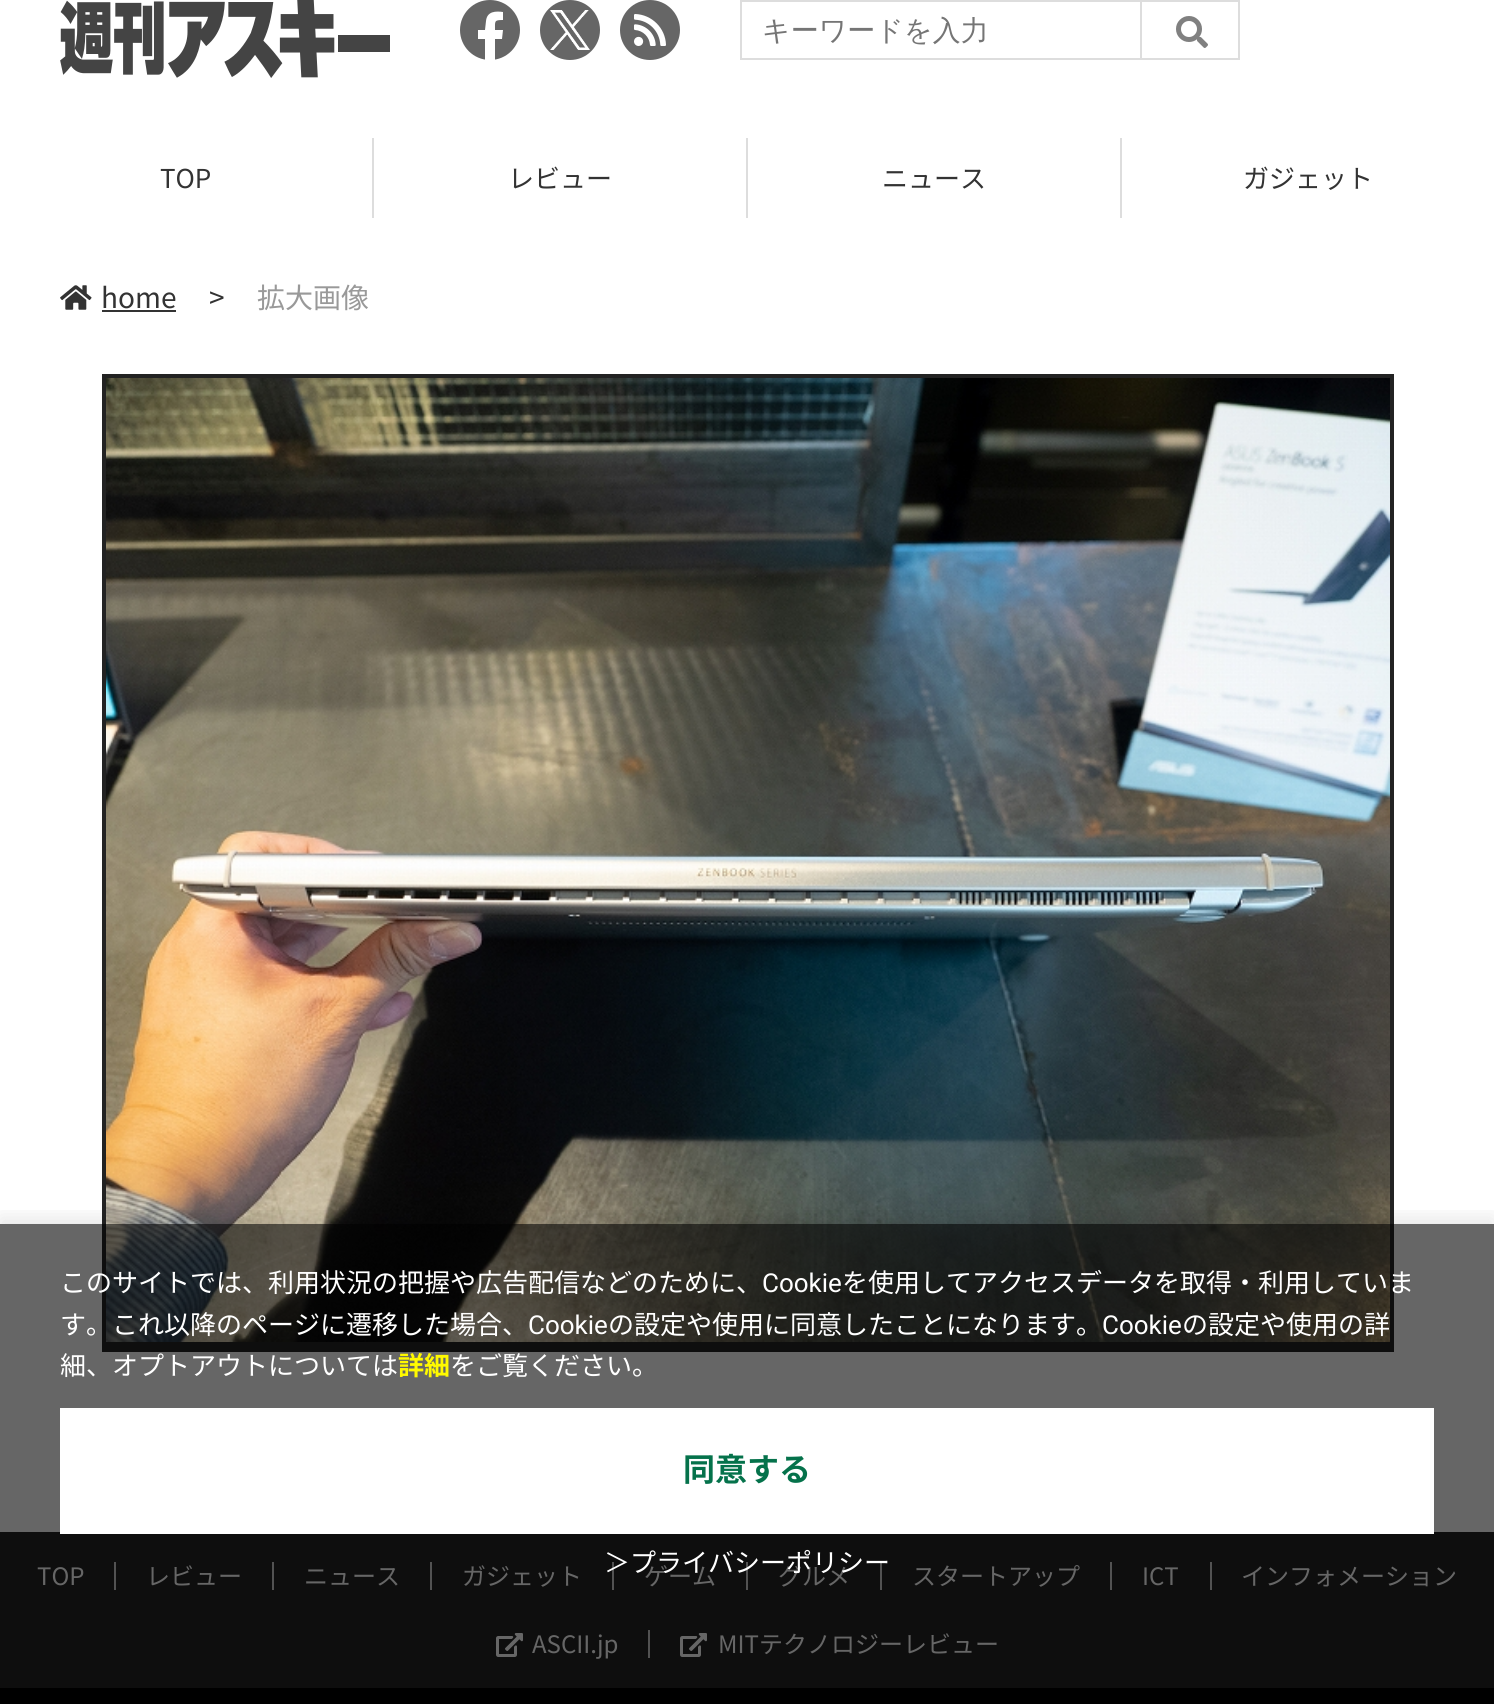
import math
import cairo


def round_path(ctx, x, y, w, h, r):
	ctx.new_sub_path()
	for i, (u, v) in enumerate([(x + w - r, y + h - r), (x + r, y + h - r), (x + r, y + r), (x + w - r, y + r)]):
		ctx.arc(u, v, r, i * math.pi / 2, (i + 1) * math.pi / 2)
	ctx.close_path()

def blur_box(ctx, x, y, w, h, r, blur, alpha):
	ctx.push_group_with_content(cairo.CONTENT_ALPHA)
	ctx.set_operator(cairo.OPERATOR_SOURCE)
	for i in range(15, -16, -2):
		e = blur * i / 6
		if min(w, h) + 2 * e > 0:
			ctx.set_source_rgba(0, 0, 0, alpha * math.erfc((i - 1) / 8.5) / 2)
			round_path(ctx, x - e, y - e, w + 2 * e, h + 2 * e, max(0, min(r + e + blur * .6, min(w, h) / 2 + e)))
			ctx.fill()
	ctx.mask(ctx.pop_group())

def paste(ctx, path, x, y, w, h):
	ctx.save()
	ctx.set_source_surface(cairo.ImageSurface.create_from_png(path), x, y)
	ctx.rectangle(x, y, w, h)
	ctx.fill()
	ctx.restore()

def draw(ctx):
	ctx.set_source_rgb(1, 1, 1)
	ctx.paint()
	paste(ctx, 'media/1.png', 60, 0, 330, 78)
	ctx.set_source_rgb(0.4, 0.4, 0.4)
	ctx.arc(490, 30, 30, 0, 2 * math.pi)
	ctx.fill()
	ctx.set_source_rgb(1, 1, 1)
	ctx.new_path()
	ctx.move_to(502, 39)
	ctx.line_to(503, 30)
	ctx.line_to(495, 30)
	ctx.curve_to(495, 21, 494, 20, 503, 20)
	ctx.line_to(503, 12)
	ctx.curve_to(496, 11, 487, 11, 486, 21)
	ctx.line_to(485, 30)
	ctx.line_to(478, 30)
	ctx.line_to(478, 39)
	ctx.line_to(485, 39)
	ctx.line_to(485, 60)
	ctx.curve_to(488, 60, 492, 60, 495, 60)
	ctx.line_to(495, 39)
	ctx.close_path()
	ctx.fill()
	ctx.set_source_rgb(0.4, 0.4, 0.4)
	ctx.arc(570, 30, 30, 0, 2 * math.pi)
	ctx.fill()
	paste(ctx, 'media/2.png', 550, 10, 40, 40)
	paste(ctx, 'media/3.png', 620, 0, 60, 60)
	ctx.set_source_rgb(0.867, 0.867, 0.867)
	ctx.rectangle(740, 0, 400, 2)
	ctx.rectangle(740, 58, 400, 2)
	ctx.rectangle(740, 0, 2, 60)
	ctx.fill()
	ctx.select_font_face('WenQuanYi Zen Hei Medium')
	ctx.set_font_size(28)
	ctx.set_source_rgb(0.459, 0.459, 0.459)
	ctx.move_to(762, 40)
	ctx.show_text('キーワードを入力')
	ctx.rectangle(1141, 1, 98, 58)
	ctx.set_source_rgb(0.867, 0.867, 0.867)
	ctx.stroke()
	paste(ctx, 'media/4.png', 1176, 16, 32, 32)
	ctx.rectangle(372, 138, 2, 80)
	ctx.fill()
	ctx.select_font_face('Noto Sans JP Thin')
	ctx.set_font_size(26)
	ctx.set_source_rgb(0.2, 0.2, 0.2)
	ctx.move_to(160, 188)
	ctx.show_text('TOP')
	ctx.set_source_rgb(0.867, 0.867, 0.867)
	ctx.rectangle(746, 138, 2, 80)
	ctx.fill()
	ctx.set_source_rgb(0.2, 0.2, 0.2)
	ctx.move_to(508, 188)
	ctx.show_text('レビュー')
	ctx.set_source_rgb(0.867, 0.867, 0.867)
	ctx.rectangle(1120, 138, 2, 80)
	ctx.fill()
	ctx.set_source_rgb(0.2, 0.2, 0.2)
	ctx.move_to(882, 188)
	ctx.show_text('ニュース')
	ctx.move_to(1243, 188)
	ctx.show_text('ガジェット')
	paste(ctx, 'media/5.png', 60, 285, 32, 25)
	ctx.set_font_size(28)
	ctx.move_to(101, 308)
	ctx.show_text('home')
	ctx.rectangle(102, 310, 74, 2)
	ctx.fill()
	ctx.move_to(209, 308)
	ctx.show_text('>')
	ctx.set_source_rgb(0.6, 0.6, 0.6)
	ctx.move_to(257, 308)
	ctx.show_text('拡大画像')
	ctx.set_source_rgb(0.133, 0.133, 0.133)
	ctx.rectangle(102, 374, 1292, 978)
	ctx.fill()
	paste(ctx, 'media/6.png', 106, 378, 1284, 964)
	ctx.rectangle(0, 1532, 1494, 156)
	ctx.fill()
	ctx.set_source_rgb(0.8, 0.8, 0.8)
	ctx.rectangle(114, 1562, 2, 28)
	ctx.rectangle(272, 1562, 2, 28)
	ctx.rectangle(430, 1562, 2, 28)
	ctx.rectangle(612, 1562, 2, 28)
	ctx.rectangle(746, 1562, 2, 28)
	ctx.rectangle(880, 1562, 2, 28)
	ctx.rectangle(1110, 1562, 2, 28)
	ctx.rectangle(1210, 1562, 2, 28)
	ctx.rectangle(648, 1630, 2, 28)
	ctx.fill()
	paste(ctx, 'media/7.png', 496, 1633, 27, 24)
	paste(ctx, 'media/7.png', 680, 1633, 27, 24)
	ctx.set_source_rgb(0, 0, 0)
	ctx.rectangle(0, 1688, 1494, 16)
	ctx.fill()
	ctx.save()
	ctx.rectangle(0, 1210, 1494, 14)
	ctx.clip()
	ctx.set_source_rgb(0, 0, 0)
	blur_box(ctx, 0, 1218, 1494, 480, 0, 10, 0.1)
	ctx.restore()
	ctx.set_font_size(24)
	ctx.set_source_rgb(1, 1, 1)
	for x, y, s in [
		(37, 1585, 'TOP'),
		(146, 1585, 'レビュー'),
		(304, 1585, 'ニュース'),
		(462, 1585, 'ガジェット'),
		(644, 1585, 'ゲーム'),
		(778, 1585, 'グルメ'),
		(912, 1585, 'スタートアップ'),
		(1142, 1585, 'ICT'),
		(1241, 1585, 'インフォメーション'),
		(532, 1653, 'ASCII.jp'),
		(718, 1653, 'MITテクノロジーレビュー'),
	]:
		ctx.move_to(x, y)
		ctx.show_text(s)
	ctx.set_source_rgba(0, 0, 0, 0.6)
	ctx.rectangle(0, 1224, 1494, 464)
	ctx.fill()
	ctx.set_font_size(26)
	ctx.set_source_rgb(1, 1, 1)
	ctx.move_to(60, 1292)
	ctx.show_text('このサイトでは、利用状況の把握や広告配信などのために、')
	ctx.select_font_face('Roboto')
	ctx.move_to(762, 1292)
	ctx.show_text('Cookie')
	ctx.select_font_face('Noto Sans JP Thin')
	ctx.move_to(842, 1292)
	ctx.show_text('を使用してアクセスデータを取得・利用していま')
	ctx.move_to(60, 1334)
	ctx.show_text('す。これ以降のページに遷移した場合、')
	ctx.select_font_face('Roboto')
	ctx.move_to(528, 1334)
	ctx.show_text('Cookie')
	ctx.select_font_face('Noto Sans JP Thin')
	ctx.move_to(608, 1334)
	ctx.show_text('の設定や使用に同意したことになります。')
	ctx.select_font_face('Roboto')
	ctx.move_to(1102, 1334)
	ctx.show_text('Cookie')
	ctx.select_font_face('Noto Sans JP Thin')
	ctx.move_to(1182, 1334)
	ctx.show_text('の設定や使用の詳')
	ctx.move_to(60, 1375)
	ctx.show_text('細、オプトアウトについては')
	ctx.select_font_face('Noto Sans JP', cairo.FONT_SLANT_NORMAL, cairo.FONT_WEIGHT_BOLD)
	ctx.set_source_rgb(1, 0.98, 0)
	ctx.move_to(398, 1375)
	ctx.show_text('詳細')
	ctx.select_font_face('Noto Sans JP Thin')
	ctx.set_source_rgb(1, 1, 1)
	ctx.move_to(450, 1375)
	ctx.show_text('をご覧ください。')
	ctx.rectangle(60, 1408, 1374, 126)
	ctx.fill()
	ctx.select_font_face('Noto Sans JP', cairo.FONT_SLANT_NORMAL, cairo.FONT_WEIGHT_BOLD)
	ctx.set_font_size(32)
	ctx.set_source_rgb(0.02, 0.447, 0.294)
	ctx.move_to(683, 1481)
	ctx.show_text('同意する')
	ctx.select_font_face('Noto Sans JP Thin')
	ctx.set_font_size(26)
	ctx.set_source_rgb(1, 1, 1)
	ctx.move_to(604, 1572)
	ctx.show_text('＞プライバシーポリシー')


surface = cairo.ImageSurface(cairo.FORMAT_RGB24, 1494, 1704)
ctx = cairo.Context(surface)
options = cairo.FontOptions()
options.set_hint_metrics(cairo.HINT_METRICS_OFF)
options.set_hint_style(cairo.HINT_STYLE_NONE)
ctx.set_font_options(options)
ctx.set_miter_limit(4)
draw(ctx)
surface.write_to_png('image.png')
